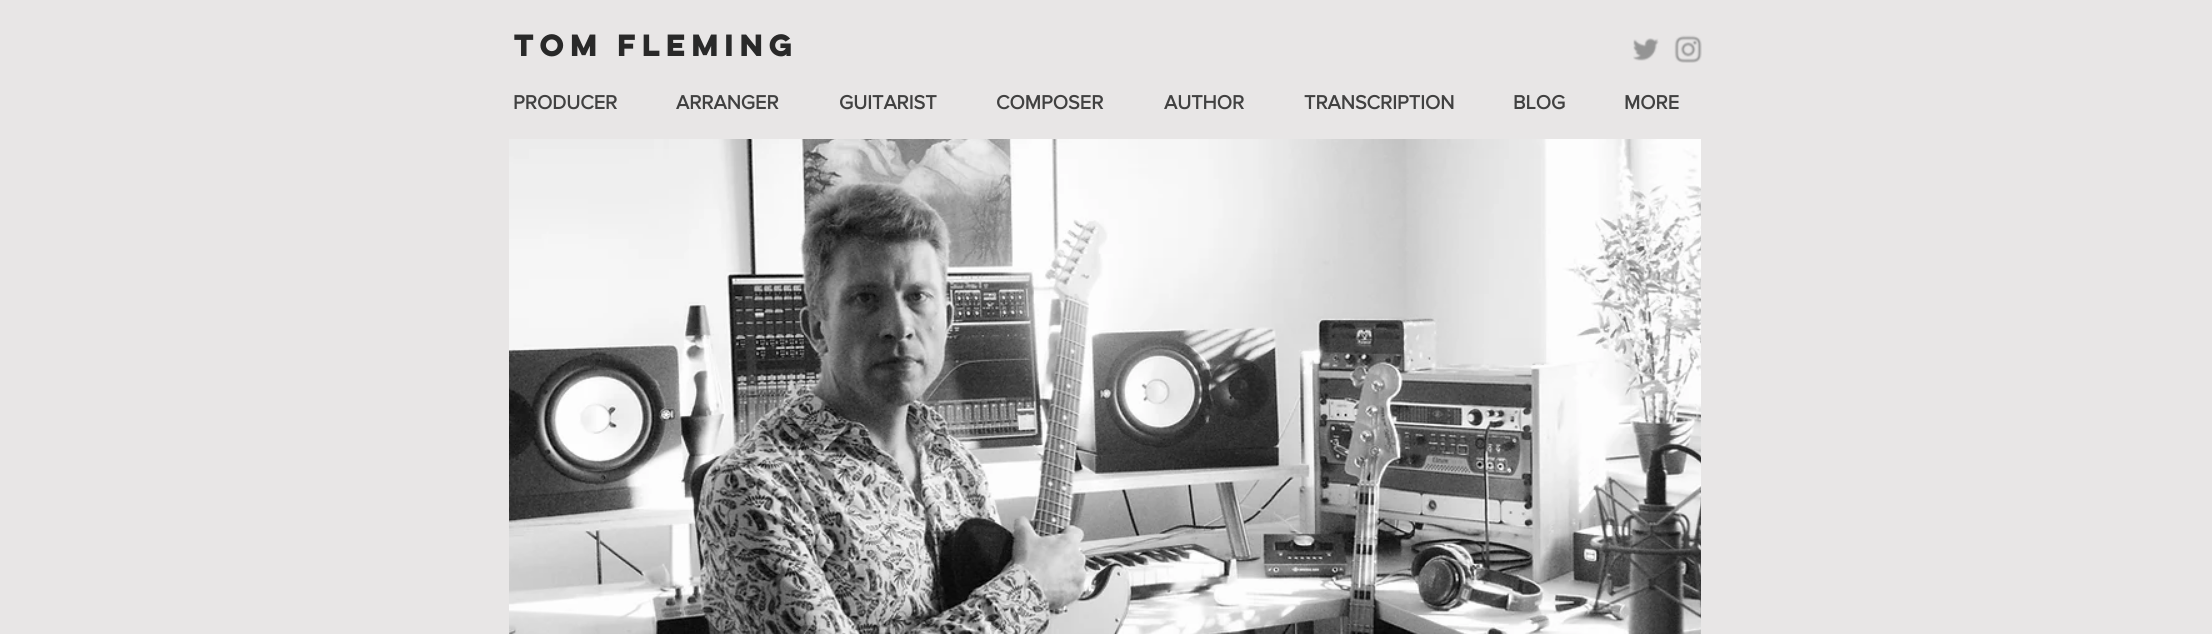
import math
import cairo


def paste(ctx, path, x, y, w, h):
	ctx.save()
	ctx.set_source_surface(cairo.ImageSurface.create_from_png(path), x, y)
	ctx.rectangle(x, y, w, h)
	ctx.fill()
	ctx.restore()

def draw(ctx):
	ctx.set_source_rgb(0.91, 0.902, 0.902)
	ctx.paint()
	ctx.select_font_face('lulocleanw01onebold', cairo.FONT_SLANT_NORMAL, cairo.FONT_WEIGHT_BOLD)
	ctx.set_font_size(27.5)
	ctx.set_source_rgb(0.161, 0.161, 0.161)
	ctx.move_to(514, 56)
	ctx.show_text('TOM FLEMING')
	paste(ctx, 'media/1.png', 1633, 38, 26, 23)
	paste(ctx, 'media/2.png', 1674, 35, 28, 28)
	ctx.select_font_face('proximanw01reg', cairo.FONT_SLANT_NORMAL, cairo.FONT_WEIGHT_BOLD)
	ctx.set_font_size(20)
	ctx.set_source_rgb(0.255, 0.255, 0.255)
	for x, y, s in [
		(513, 109, 'PRODUCER'),
		(676, 109, 'ARRANGER'),
		(839, 109, 'GUITARIST'),
		(996, 109, 'COMPOSER'),
		(1164, 109, 'AUTHOR'),
		(1304, 109, 'TRANSCRIPTION'),
		(1513, 109, 'BLOG'),
		(1624, 109, 'MORE'),
	]:
		ctx.move_to(x, y)
		ctx.show_text(s)
	paste(ctx, 'media/3.png', 509, 139, 1192, 495)


surface = cairo.ImageSurface(cairo.FORMAT_RGB24, 2212, 634)
ctx = cairo.Context(surface)
options = cairo.FontOptions()
options.set_hint_metrics(cairo.HINT_METRICS_OFF)
options.set_hint_style(cairo.HINT_STYLE_NONE)
ctx.set_font_options(options)
ctx.set_miter_limit(4)
draw(ctx)
surface.write_to_png('image.png')
